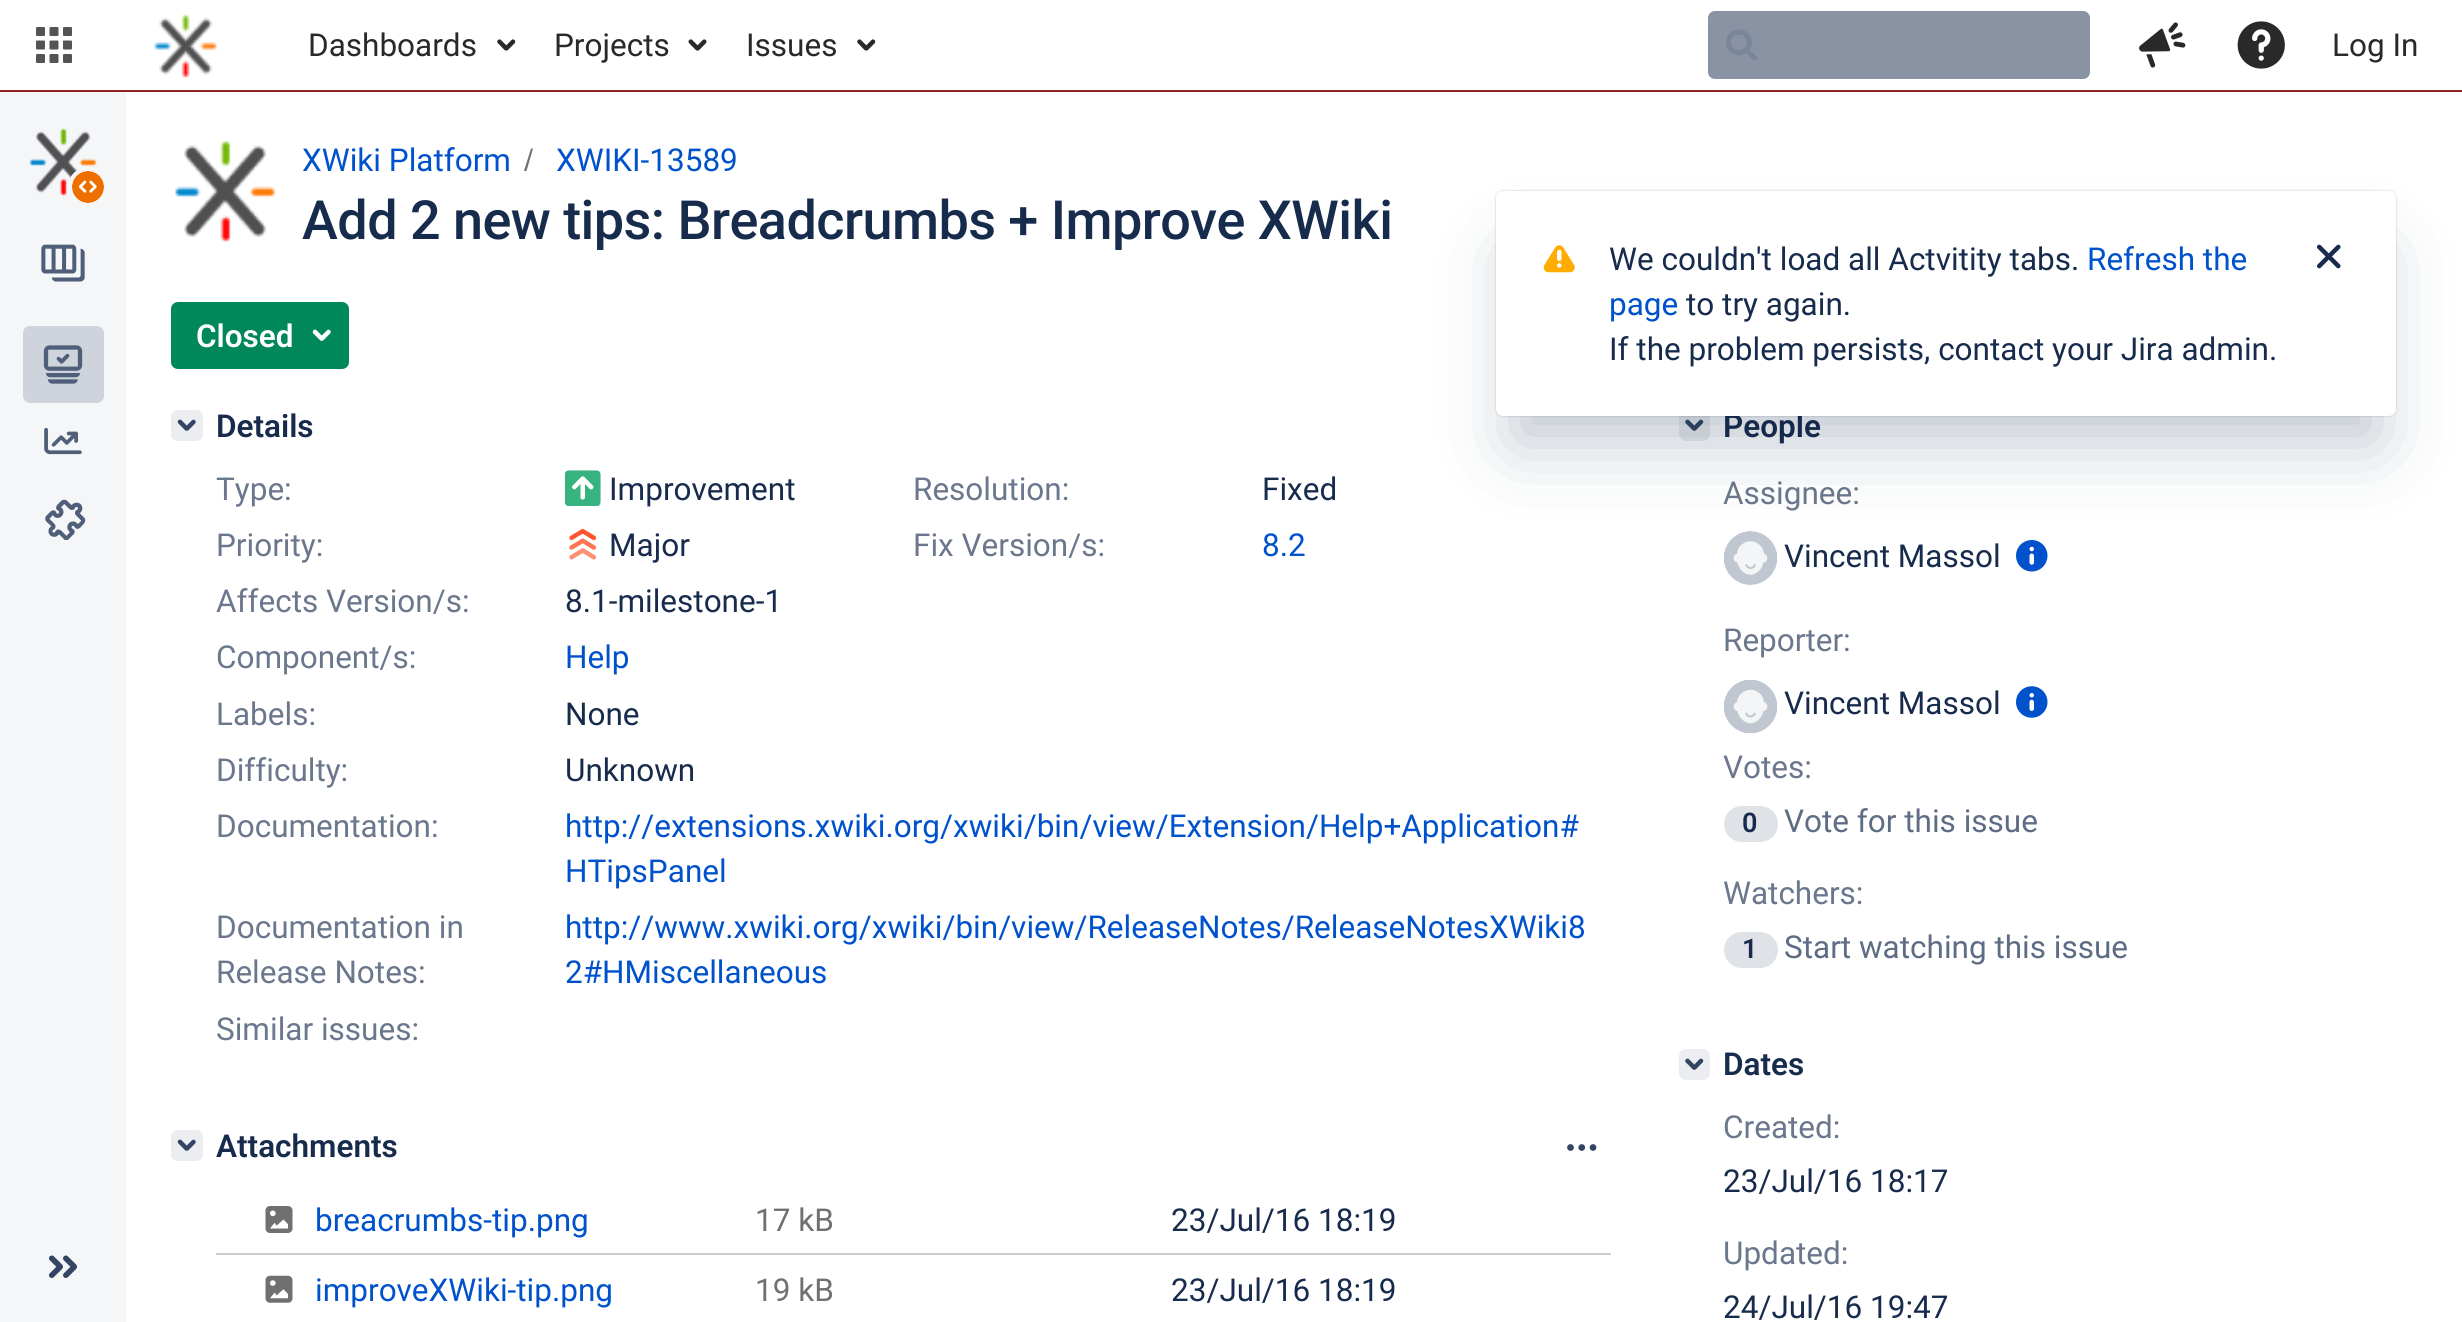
import math
import cairo


def write_spaced(ctx, x, y, s, letter, word):
	ctx.move_to(x, y)
	for ch in s:
		ctx.show_text(ch)
		ctx.rel_move_to(letter + word * (ch == ' '), 0)

def round_path(ctx, x, y, w, h, r):
	ctx.new_sub_path()
	for i, (u, v) in enumerate([(x + w - r, y + h - r), (x + r, y + h - r), (x + r, y + r), (x + w - r, y + r)]):
		ctx.arc(u, v, r, i * math.pi / 2, (i + 1) * math.pi / 2)
	ctx.close_path()

def blur_box(ctx, x, y, w, h, r, blur, alpha):
	ctx.push_group_with_content(cairo.CONTENT_ALPHA)
	ctx.set_operator(cairo.OPERATOR_SOURCE)
	for i in range(15, -16, -2):
		e = blur * i / 6
		if min(w, h) + 2 * e > 0:
			ctx.set_source_rgba(0, 0, 0, alpha * math.erfc((i - 1) / 8.5) / 2)
			round_path(ctx, x - e, y - e, w + 2 * e, h + 2 * e, max(0, min(r + e + blur * .6, min(w, h) / 2 + e)))
			ctx.fill()
	ctx.mask(ctx.pop_group())

def paste(ctx, path, x, y, w, h):
	ctx.save()
	ctx.set_source_surface(cairo.ImageSurface.create_from_png(path), x, y)
	ctx.rectangle(x, y, w, h)
	ctx.fill()
	ctx.restore()

def draw(ctx):
	ctx.set_source_rgb(1, 1, 1)
	ctx.paint()
	ctx.set_source_rgb(0.549, 0.137, 0.137)
	ctx.rectangle(0, 90, 2462, 2)
	ctx.fill()
	paste(ctx, 'media/1.png', 36, 27, 36, 36)
	paste(ctx, 'media/2.png', 153, 13, 65, 66)
	ctx.select_font_face('Roboto')
	ctx.set_font_size(31.5)
	ctx.set_source_rgb(0.161, 0.161, 0.161)
	ctx.move_to(308, 56)
	ctx.show_text('Dashboards')
	paste(ctx, 'media/3.png', 497, 39, 19, 12)
	ctx.move_to(554, 56)
	ctx.show_text('Projects')
	paste(ctx, 'media/4.png', 688, 39, 19, 12)
	ctx.move_to(746, 56)
	ctx.show_text('Issues')
	paste(ctx, 'media/3.png', 857, 39, 19, 12)
	ctx.set_source_rgb(0.537, 0.576, 0.643)
	round_path(ctx, 1708, 11, 382, 68, 7)
	ctx.fill()
	paste(ctx, 'media/5.png', 1726, 29, 31, 32)
	paste(ctx, 'media/6.png', 2139, 22, 47, 46)
	paste(ctx, 'media/7.png', 2237, 21, 48, 48)
	ctx.set_source_rgb(0.161, 0.161, 0.161)
	ctx.move_to(2332, 56)
	ctx.show_text('Log In')
	ctx.set_source_rgb(0.957, 0.961, 0.969)
	ctx.rectangle(0, 92, 126, 1230)
	ctx.fill()
	paste(ctx, 'media/8.png', 29, 128, 68, 68)
	ctx.arc(88, 187, 20, 0, 2 * math.pi)
	ctx.fill()
	paste(ctx, 'media/9.png', 72, 171, 32, 32)
	paste(ctx, 'media/10.png', 41, 244, 44, 38)
	ctx.set_source_rgb(0.882, 0.894, 0.914)
	round_path(ctx, 23, 326, 81, 77, 7)
	ctx.fill()
	ctx.set_source_rgba(0.035, 0.118, 0.259, 0.08)
	round_path(ctx, 23, 326, 81, 77, 7)
	ctx.fill()
	paste(ctx, 'media/11.png', 43, 345, 40, 39)
	paste(ctx, 'media/12.png', 44, 427, 38, 28)
	paste(ctx, 'media/13.png', 45, 499, 41, 41)
	paste(ctx, 'media/14.png', 49, 1255, 28, 23)
	paste(ctx, 'media/15.png', 175, 141, 101, 101)
	ctx.set_source_rgb(0, 0.322, 0.8)
	ctx.move_to(302, 171)
	ctx.show_text('XWiki Platform')
	ctx.set_source_rgb(0.439, 0.439, 0.439)
	ctx.new_path()
	ctx.move_to(526.5, 171)
	ctx.line_to(533, 148.5)
	ctx.line_to(531, 148.5)
	ctx.line_to(524, 171)
	ctx.close_path()
	ctx.fill()
	ctx.set_source_rgb(0, 0.322, 0.8)
	ctx.move_to(556, 171)
	ctx.show_text('XWIKI-13589')
	ctx.select_font_face('Roboto Medium')
	ctx.set_font_size(54)
	ctx.set_source_rgb(0.09, 0.169, 0.302)
	write_spaced(ctx, 302, 239, 'Add 2 new tips: Breadcrumbs + Improve XWiki', -0.55, 0)
	ctx.set_source_rgb(0, 0.529, 0.353)
	round_path(ctx, 172, 303, 176, 65, 6)
	ctx.fill_preserve()
	ctx.stroke()
	ctx.select_font_face('Roboto SemiBold')
	ctx.set_font_size(31.5)
	ctx.set_source_rgb(1, 1, 1)
	ctx.move_to(196, 347)
	ctx.show_text('Closed')
	paste(ctx, 'media/16.png', 312, 329, 19, 12)
	ctx.set_source_rgb(0.922, 0.929, 0.941)
	round_path(ctx, 171, 410, 32, 31, 7)
	ctx.fill()
	paste(ctx, 'media/17.png', 177, 419, 19, 12)
	ctx.set_source_rgb(0.09, 0.169, 0.302)
	ctx.move_to(216, 437)
	ctx.show_text('Details')
	ctx.select_font_face('Roboto')
	ctx.set_source_rgb(0.42, 0.467, 0.549)
	ctx.move_to(216, 500)
	ctx.show_text('Type:')
	paste(ctx, 'media/18.png', 565, 470, 36, 36)
	ctx.set_source_rgb(0.09, 0.169, 0.302)
	ctx.move_to(609, 500)
	ctx.show_text('Improvement')
	ctx.set_source_rgb(0.42, 0.467, 0.549)
	ctx.move_to(913, 500)
	ctx.show_text('Resolution:')
	ctx.set_source_rgb(0.09, 0.169, 0.302)
	ctx.move_to(1262, 500)
	ctx.show_text('Fixed')
	ctx.set_source_rgb(0.42, 0.467, 0.549)
	ctx.move_to(216, 556)
	ctx.show_text('Priority:')
	paste(ctx, 'media/19.png', 569, 528, 28, 32)
	ctx.set_source_rgb(0.09, 0.169, 0.302)
	ctx.move_to(609, 556)
	ctx.show_text('Major')
	ctx.set_source_rgb(0.42, 0.467, 0.549)
	ctx.move_to(913, 556)
	ctx.show_text('Fix Version/s:')
	ctx.set_source_rgb(0, 0.322, 0.8)
	ctx.move_to(1262, 556)
	ctx.show_text('8.2')
	ctx.set_source_rgb(0.42, 0.467, 0.549)
	ctx.move_to(216, 612)
	ctx.show_text('Affects Version/s:')
	ctx.set_source_rgb(0.09, 0.169, 0.302)
	ctx.move_to(565, 612)
	ctx.show_text('8.1-milestone-1')
	ctx.set_source_rgb(0.42, 0.467, 0.549)
	ctx.move_to(216, 668)
	ctx.show_text('Component/s:')
	ctx.set_source_rgb(0, 0.322, 0.8)
	ctx.move_to(565, 668)
	ctx.show_text('Help')
	ctx.set_source_rgb(0.42, 0.467, 0.549)
	ctx.move_to(216, 725)
	ctx.show_text('Labels:')
	ctx.set_source_rgb(0.09, 0.169, 0.302)
	ctx.move_to(565, 725)
	ctx.show_text('None')
	ctx.set_source_rgb(0.42, 0.467, 0.549)
	ctx.move_to(216, 781)
	ctx.show_text('Difficulty:')
	ctx.set_source_rgb(0.09, 0.169, 0.302)
	ctx.move_to(565, 781)
	ctx.show_text('Unknown')
	ctx.set_source_rgb(0.42, 0.467, 0.549)
	ctx.move_to(216, 837)
	ctx.show_text('Documentation:')
	ctx.set_source_rgb(0, 0.322, 0.8)
	ctx.move_to(565, 837)
	ctx.show_text('http://extensions.xwiki.org/xwiki/bin/view/Extension/Help+Application#')
	ctx.move_to(565, 882)
	ctx.show_text('HTipsPanel')
	ctx.set_source_rgb(0.42, 0.467, 0.549)
	ctx.move_to(216, 938)
	ctx.show_text('Documentation in')
	ctx.move_to(216, 983)
	ctx.show_text('Release Notes:')
	ctx.set_source_rgb(0, 0.322, 0.8)
	ctx.move_to(565, 938)
	ctx.show_text('http://www.xwiki.org/xwiki/bin/view/ReleaseNotes/ReleaseNotesXWiki8')
	ctx.move_to(565, 983)
	ctx.show_text('2#HMiscellaneous')
	ctx.set_source_rgb(0.42, 0.467, 0.549)
	ctx.move_to(216, 1040)
	ctx.show_text('Similar issues:')
	ctx.set_source_rgb(0.922, 0.929, 0.941)
	round_path(ctx, 171, 1130, 32, 31, 7)
	ctx.fill()
	paste(ctx, 'media/17.png', 177, 1139, 19, 12)
	ctx.select_font_face('Roboto SemiBold')
	ctx.set_source_rgb(0.09, 0.169, 0.302)
	ctx.move_to(216, 1157)
	ctx.show_text('Attachments')
	paste(ctx, 'media/20.png', 1567, 1144, 30, 7)
	ctx.set_source_rgb(0.8, 0.8, 0.8)
	ctx.rectangle(216, 1253, 1395, 2)
	ctx.fill()
	paste(ctx, 'media/21.png', 265, 1206, 28, 27)
	ctx.select_font_face('Roboto')
	ctx.set_source_rgb(0, 0.322, 0.8)
	ctx.move_to(315, 1231)
	ctx.show_text('breacrumbs-tip.png')
	ctx.set_source_rgb(0.439, 0.439, 0.439)
	ctx.move_to(755, 1231)
	ctx.show_text('17 kB')
	ctx.set_source_rgb(0.09, 0.169, 0.302)
	ctx.move_to(1171, 1231)
	ctx.show_text('23/Jul/16 18:19')
	paste(ctx, 'media/22.png', 265, 1275, 28, 28)
	ctx.set_source_rgb(0, 0.322, 0.8)
	ctx.move_to(315, 1301)
	ctx.show_text('improveXWiki-tip.png')
	ctx.set_source_rgb(0.439, 0.439, 0.439)
	ctx.move_to(755, 1301)
	ctx.show_text('19 kB')
	ctx.set_source_rgb(0.09, 0.169, 0.302)
	ctx.move_to(1171, 1301)
	ctx.show_text('23/Jul/16 18:19')
	ctx.set_source_rgb(0.922, 0.929, 0.941)
	round_path(ctx, 1679, 410, 31, 31, 7)
	ctx.fill()
	paste(ctx, 'media/23.png', 1685, 419, 19, 12)
	ctx.select_font_face('Roboto SemiBold')
	ctx.set_source_rgb(0.09, 0.169, 0.302)
	ctx.move_to(1723, 437)
	ctx.show_text('People')
	ctx.select_font_face('Roboto')
	ctx.set_source_rgb(0.42, 0.467, 0.549)
	ctx.move_to(1723, 504)
	ctx.show_text('Assignee:')
	paste(ctx, 'media/24.png', 1724, 531, 54, 54)
	ctx.set_source_rgb(0.09, 0.169, 0.302)
	ctx.move_to(1784, 567)
	ctx.show_text('Vincent Massol')
	paste(ctx, 'media/25.png', 2016, 540, 32, 32)
	ctx.set_source_rgb(0.42, 0.467, 0.549)
	ctx.move_to(1723, 651)
	ctx.show_text('Reporter:')
	paste(ctx, 'media/26.png', 1724, 680, 54, 54)
	ctx.set_source_rgb(0.09, 0.169, 0.302)
	ctx.move_to(1784, 714)
	ctx.show_text('Vincent Massol')
	paste(ctx, 'media/27.png', 2016, 686, 32, 32)
	ctx.set_source_rgb(0.42, 0.467, 0.549)
	ctx.move_to(1723, 778)
	ctx.show_text('Votes:')
	ctx.set_source_rgb(0.875, 0.886, 0.902)
	round_path(ctx, 1724, 806, 54, 36, 18)
	ctx.fill()
	ctx.select_font_face('Roboto SemiBold')
	ctx.set_font_size(27)
	ctx.set_source_rgb(0.09, 0.169, 0.302)
	ctx.move_to(1742, 832)
	ctx.show_text('0')
	ctx.select_font_face('Roboto')
	ctx.set_font_size(31.5)
	ctx.set_source_rgb(0.369, 0.424, 0.518)
	ctx.move_to(1784, 832)
	ctx.show_text('Vote for this issue')
	ctx.set_source_rgb(0.42, 0.467, 0.549)
	ctx.move_to(1723, 904)
	ctx.show_text('Watchers:')
	ctx.set_source_rgb(0.875, 0.886, 0.902)
	round_path(ctx, 1724, 932, 54, 36, 18)
	ctx.fill()
	ctx.select_font_face('Roboto SemiBold')
	ctx.set_font_size(27)
	ctx.set_source_rgb(0.09, 0.169, 0.302)
	ctx.move_to(1742, 958)
	ctx.show_text('1')
	ctx.select_font_face('Roboto')
	ctx.set_font_size(31.5)
	ctx.set_source_rgb(0.369, 0.424, 0.518)
	ctx.move_to(1784, 958)
	ctx.show_text('Start watching this issue')
	ctx.set_source_rgb(0.922, 0.929, 0.941)
	round_path(ctx, 1679, 1049, 31, 31, 7)
	ctx.fill()
	paste(ctx, 'media/23.png', 1685, 1058, 19, 12)
	ctx.select_font_face('Roboto SemiBold')
	ctx.set_source_rgb(0.09, 0.169, 0.302)
	ctx.move_to(1723, 1075)
	ctx.show_text('Dates')
	ctx.select_font_face('Roboto')
	ctx.set_source_rgb(0.42, 0.467, 0.549)
	ctx.move_to(1723, 1138)
	ctx.show_text('Created:')
	ctx.set_source_rgb(0.09, 0.169, 0.302)
	ctx.move_to(1723, 1192)
	ctx.show_text('23/Jul/16 18:17')
	ctx.set_source_rgb(0.42, 0.467, 0.549)
	ctx.move_to(1723, 1264)
	ctx.show_text('Updated:')
	ctx.set_source_rgb(0.09, 0.169, 0.302)
	ctx.move_to(1723, 1318)
	ctx.show_text('24/Jul/16 19:47')
	ctx.set_source_rgb(0.035, 0.118, 0.259)
	blur_box(ctx, 1496, 191, 900, 225, 7, 1, 0.25)
	blur_box(ctx, 1514, 254, 864, 189, 0, 36, 0.25)
	ctx.set_source_rgb(1, 1, 1)
	round_path(ctx, 1496, 191, 900, 225, 7)
	ctx.fill()
	paste(ctx, 'media/28.png', 1543, 245, 32, 28)
	ctx.set_source_rgb(0.09, 0.169, 0.302)
	ctx.move_to(1609, 270)
	ctx.show_text('We couldn\'t load all Actvitity tabs.')
	ctx.set_source_rgb(0, 0.322, 0.8)
	ctx.move_to(2087, 270)
	ctx.show_text('Refresh the')
	paste(ctx, 'media/29.png', 2317, 244, 24, 25)
	ctx.move_to(1609, 315)
	ctx.show_text('page')
	ctx.set_source_rgb(0.09, 0.169, 0.302)
	ctx.move_to(1686, 315)
	ctx.show_text('to try again.')
	ctx.move_to(1609, 360)
	ctx.show_text('If the problem persists, contact your Jira admin.')


surface = cairo.ImageSurface(cairo.FORMAT_RGB24, 2462, 1322)
ctx = cairo.Context(surface)
options = cairo.FontOptions()
options.set_hint_metrics(cairo.HINT_METRICS_OFF)
options.set_hint_style(cairo.HINT_STYLE_NONE)
ctx.set_font_options(options)
ctx.set_miter_limit(4)
draw(ctx)
surface.write_to_png('image.png')
